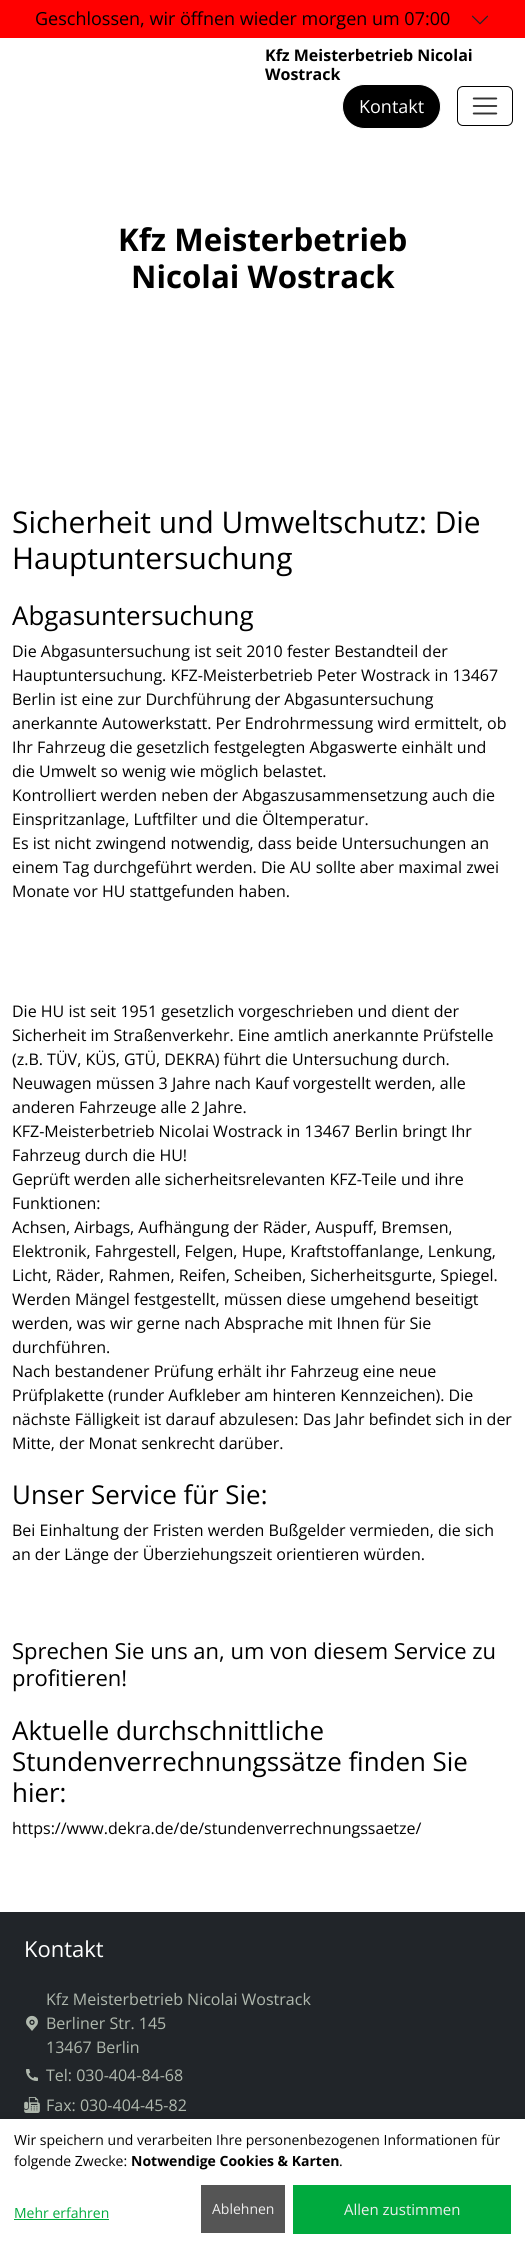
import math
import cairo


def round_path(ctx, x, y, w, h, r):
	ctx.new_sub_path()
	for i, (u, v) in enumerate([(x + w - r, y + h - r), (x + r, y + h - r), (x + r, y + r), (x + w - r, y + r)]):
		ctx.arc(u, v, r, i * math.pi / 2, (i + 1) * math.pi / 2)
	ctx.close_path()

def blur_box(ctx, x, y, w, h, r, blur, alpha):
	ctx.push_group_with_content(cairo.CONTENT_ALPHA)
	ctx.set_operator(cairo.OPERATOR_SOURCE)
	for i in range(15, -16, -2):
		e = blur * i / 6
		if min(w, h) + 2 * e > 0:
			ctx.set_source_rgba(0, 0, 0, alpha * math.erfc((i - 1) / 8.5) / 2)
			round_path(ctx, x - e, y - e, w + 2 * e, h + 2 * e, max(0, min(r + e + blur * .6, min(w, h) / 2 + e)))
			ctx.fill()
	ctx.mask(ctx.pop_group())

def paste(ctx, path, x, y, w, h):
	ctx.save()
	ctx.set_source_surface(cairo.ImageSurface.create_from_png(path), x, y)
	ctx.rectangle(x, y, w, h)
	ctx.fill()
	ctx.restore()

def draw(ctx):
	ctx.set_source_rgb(1, 1, 1)
	ctx.paint()
	ctx.set_source_rgb(1, 0, 0)
	ctx.rectangle(0, 0, 525, 38)
	ctx.fill()
	ctx.select_font_face('Open Sans')
	ctx.set_font_size(18)
	ctx.set_source_rgb(0, 0, 0)
	ctx.move_to(35, 25)
	ctx.show_text('Geschlossen, wir öffnen wieder morgen um 07:00')
	paste(ctx, 'media/1.png', 471, 15, 18, 10)
	ctx.select_font_face('Open Sans', cairo.FONT_SLANT_NORMAL, cairo.FONT_WEIGHT_BOLD)
	ctx.set_font_size(16)
	ctx.move_to(265, 61)
	ctx.show_text('Kfz Meisterbetrieb Nicolai')
	ctx.move_to(265, 80)
	ctx.show_text('Wostrack')
	round_path(ctx, 342.5, 84.5, 98, 44, 22)
	ctx.fill_preserve()
	ctx.set_source_rgb(1, 1, 1)
	ctx.set_line_width(1)
	ctx.stroke()
	ctx.select_font_face('Open Sans')
	ctx.set_font_size(18)
	ctx.move_to(359, 113)
	ctx.show_text('Kontakt')
	round_path(ctx, 457.5, 86.5, 55, 39, 5.5)
	ctx.set_source_rgb(0, 0, 0)
	ctx.stroke()
	paste(ctx, 'media/2.png', 472, 97, 26, 18)
	ctx.select_font_face('Open Sans', cairo.FONT_SLANT_NORMAL, cairo.FONT_WEIGHT_BOLD)
	ctx.set_font_size(31.25)
	ctx.move_to(118, 251)
	ctx.show_text('Kfz Meisterbetrieb')
	ctx.move_to(131, 288)
	ctx.show_text('Nicolai Wostrack')
	ctx.select_font_face('Open Sans')
	ctx.set_font_size(29.9)
	ctx.move_to(12, 533)
	ctx.show_text('Sicherheit und Umweltschutz: Die')
	ctx.move_to(12, 569)
	ctx.show_text('Hauptuntersuchung')
	ctx.set_font_size(25.9)
	ctx.move_to(12, 625)
	ctx.show_text('Abgasuntersuchung')
	ctx.set_font_size(16)
	for x, y, s in [
		(12, 657, 'Die Abgasuntersuchung ist seit 2010 fester Bestandteil der'),
		(12, 681, 'Hauptuntersuchung. KFZ-Meisterbetrieb Peter Wostrack in 13467'),
		(12, 705, 'Berlin ist eine zur Durchführung der Abgasuntersuchung'),
		(12, 729, 'anerkannte Autowerkstatt. Per Endrohrmessung wird ermittelt, ob'),
		(12, 753, 'Ihr Fahrzeug die gesetzlich festgelegten Abgaswerte einhält und'),
		(12, 777, 'die Umwelt so wenig wie möglich belastet.'),
		(12, 801, 'Kontrolliert werden neben der Abgaszusammensetzung auch die'),
		(12, 825, 'Einspritzanlage, Luftfilter und die Öltemperatur.'),
		(12, 849, 'Es ist nicht zwingend notwendig, dass beide Untersuchungen an'),
		(12, 873, 'einem Tag durchgeführt werden. Die AU sollte aber maximal zwei'),
		(12, 897, 'Monate vor HU stattgefunden haben.'),
		(12, 1017, 'Die HU ist seit 1951 gesetzlich vorgeschrieben und dient der'),
		(12, 1041, 'Sicherheit im Straßenverkehr. Eine amtlich anerkannte Prüfstelle'),
		(12, 1065, '(z.B. TÜV, KÜS, GTÜ, DEKRA) führt die Untersuchung durch.'),
		(12, 1089, 'Neuwagen müssen 3 Jahre nach Kauf vorgestellt werden, alle'),
		(12, 1113, 'anderen Fahrzeuge alle 2 Jahre.'),
		(12, 1137, 'KFZ-Meisterbetrieb Nicolai Wostrack in 13467 Berlin bringt Ihr'),
		(12, 1161, 'Fahrzeug durch die HU!'),
		(12, 1185, 'Geprüft werden alle sicherheitsrelevanten KFZ-Teile und ihre'),
		(12, 1209, 'Funktionen:'),
		(12, 1233, 'Achsen, Airbags, Aufhängung der Räder, Auspuff, Bremsen,'),
		(12, 1257, 'Elektronik, Fahrgestell, Felgen, Hupe, Kraftstoffanlange, Lenkung,'),
		(12, 1281, 'Licht, Räder, Rahmen, Reifen, Scheiben, Sicherheitsgurte, Spiegel.'),
		(12, 1305, 'Werden Mängel festgestellt, müssen diese umgehend beseitigt'),
		(12, 1329, 'werden, was wir gerne nach Absprache mit Ihnen für Sie'),
		(12, 1353, 'durchführen.'),
		(12, 1377, 'Nach bestandener Prüfung erhält ihr Fahrzeug eine neue'),
		(12, 1401, 'Prüfplakette (runder Aufkleber am hinteren Kennzeichen). Die'),
		(12, 1425, 'nächste Fälligkeit ist darauf abzulesen: Das Jahr befindet sich in der'),
		(12, 1449, 'Mitte, der Monat senkrecht darüber.'),
	]:
		ctx.move_to(x, y)
		ctx.show_text(s)
	ctx.set_font_size(25.9)
	ctx.move_to(12, 1504)
	ctx.show_text('Unser Service für Sie:')
	ctx.set_font_size(16)
	ctx.move_to(12, 1536)
	ctx.show_text('Bei Einhaltung der Fristen werden Bußgelder vermieden, die sich')
	ctx.move_to(12, 1560)
	ctx.show_text('an der Länge der Überziehungszeit orientieren würden.')
	ctx.set_font_size(22)
	ctx.move_to(12, 1659)
	ctx.show_text('Sprechen Sie uns an, um von diesem Service zu')
	ctx.move_to(12, 1686)
	ctx.show_text('profitieren!')
	ctx.set_font_size(25.9)
	for x, y, s in [
		(12, 1740, 'Aktuelle durchschnittliche'),
		(12, 1771, 'Stundenverrechnungssätze finden Sie'),
		(12, 1802, 'hier:'),
	]:
		ctx.move_to(x, y)
		ctx.show_text(s)
	ctx.set_font_size(16)
	ctx.move_to(12, 1834)
	ctx.show_text('https://www.dekra.de/de/stundenverrechnungssaetze/')
	ctx.set_source_rgb(0.129, 0.145, 0.161)
	ctx.rectangle(0, 1912, 525, 207)
	ctx.fill()
	ctx.set_font_size(22)
	ctx.set_source_rgb(1, 1, 1)
	ctx.move_to(24, 1957)
	ctx.show_text('Kontakt')
	ctx.set_font_size(16)
	ctx.set_source_rgb(0.69, 0.725, 0.682)
	ctx.move_to(46, 2005)
	ctx.show_text('Kfz Meisterbetrieb Nicolai Wostrack')
	paste(ctx, 'media/3.png', 26, 2015, 12, 16)
	ctx.move_to(46, 2029)
	ctx.show_text('Berliner Str. 145')
	ctx.move_to(46, 2053)
	ctx.show_text('13467 Berlin')
	paste(ctx, 'media/4.png', 26, 2069, 12, 12)
	ctx.move_to(46, 2081)
	ctx.show_text('Tel: 030-404-84-68')
	paste(ctx, 'media/5.png', 24, 2097, 16, 16)
	ctx.move_to(46, 2111)
	ctx.show_text('Fax: 030-404-45-82')
	ctx.set_source_rgb(0, 0, 0)
	blur_box(ctx, -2, 2117, 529, 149, 0, 5, 0.1)
	ctx.set_source_rgb(1, 1, 1)
	ctx.rectangle(0, 2119, 525, 145)
	ctx.fill()
	ctx.set_font_size(14)
	ctx.set_source_rgb(0, 0, 0)
	ctx.move_to(14, 2145)
	ctx.show_text('Wir speichern und verarbeiten Ihre personenbezogenen Informationen für')
	ctx.move_to(14, 2166)
	ctx.show_text('folgende Zwecke:')
	ctx.select_font_face('Open Sans', cairo.FONT_SLANT_NORMAL, cairo.FONT_WEIGHT_BOLD)
	ctx.move_to(131, 2166)
	ctx.show_text('Notwendige Cookies & Karten')
	ctx.select_font_face('Open Sans')
	ctx.move_to(339, 2166)
	ctx.show_text('.')
	ctx.set_source_rgb(0, 0.667, 0.243)
	ctx.move_to(14, 2218)
	ctx.show_text('Mehr erfahren')
	ctx.rectangle(14, 2219, 95, 1)
	ctx.fill()
	ctx.set_source_rgb(0.333, 0.333, 0.333)
	ctx.rectangle(201, 2185, 84, 48)
	ctx.fill()
	ctx.set_source_rgb(0.933, 0.933, 0.933)
	ctx.move_to(212, 2214)
	ctx.show_text('Ablehnen')
	ctx.set_source_rgb(0, 0.667, 0.243)
	ctx.rectangle(293, 2185, 218, 49)
	ctx.fill()
	ctx.set_font_size(15)
	ctx.set_source_rgb(0.933, 0.933, 0.933)
	ctx.move_to(344, 2215)
	ctx.show_text('Allen zustimmen')


surface = cairo.ImageSurface(cairo.FORMAT_RGB24, 525, 2264)
ctx = cairo.Context(surface)
options = cairo.FontOptions()
options.set_hint_metrics(cairo.HINT_METRICS_OFF)
options.set_hint_style(cairo.HINT_STYLE_NONE)
ctx.set_font_options(options)
ctx.set_miter_limit(4)
draw(ctx)
surface.write_to_png('image.png')
